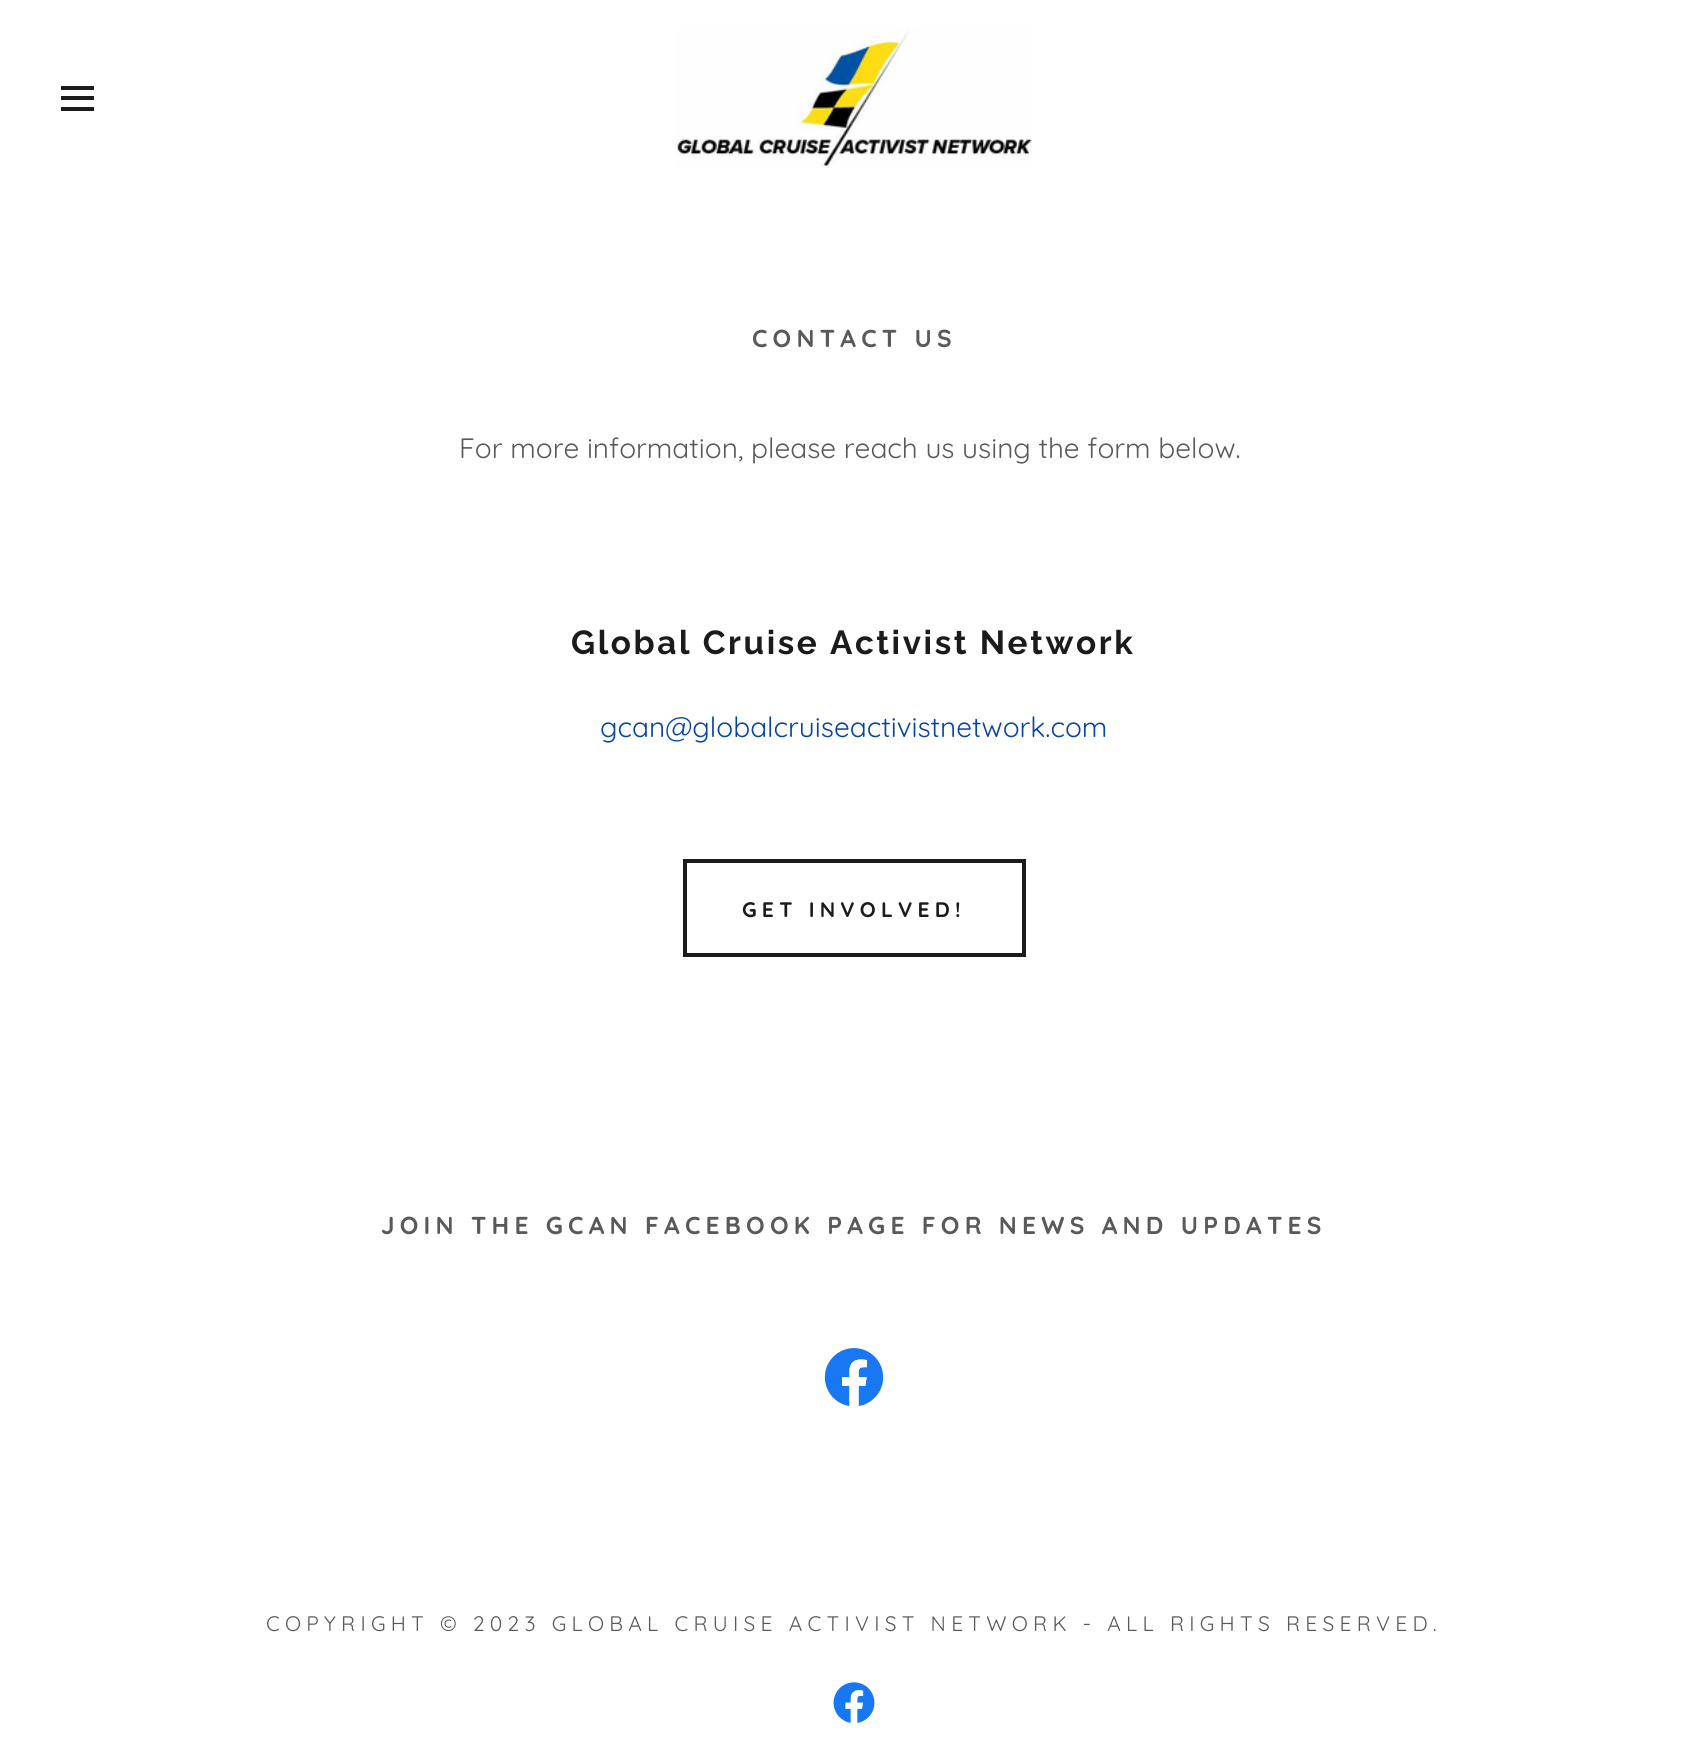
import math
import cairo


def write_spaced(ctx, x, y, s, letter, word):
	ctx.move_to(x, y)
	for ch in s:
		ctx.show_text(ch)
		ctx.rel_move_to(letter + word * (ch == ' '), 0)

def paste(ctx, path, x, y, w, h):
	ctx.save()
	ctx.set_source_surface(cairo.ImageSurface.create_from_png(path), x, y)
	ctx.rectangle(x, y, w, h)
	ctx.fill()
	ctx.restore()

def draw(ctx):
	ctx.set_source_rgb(1, 1, 1)
	ctx.paint()
	ctx.set_source_rgb(0.106, 0.106, 0.106)
	ctx.rectangle(61, 86, 33, 4)
	ctx.rectangle(61, 96, 33, 4)
	ctx.rectangle(61, 107, 33, 4)
	ctx.fill()
	paste(ctx, 'media/1.png', 675, 28, 357, 140)
	ctx.select_font_face('Quicksand', cairo.FONT_SLANT_NORMAL, cairo.FONT_WEIGHT_BOLD)
	ctx.set_font_size(24.5)
	ctx.set_source_rgb(0.349, 0.349, 0.349)
	write_spaced(ctx, 752, 347, 'CONTACT US', 5.25, 0)
	ctx.select_font_face('Quicksand')
	ctx.set_font_size(28)
	ctx.move_to(459, 458)
	ctx.show_text('For more information, please reach us using the form below.')
	ctx.select_font_face('Raleway', cairo.FONT_SLANT_NORMAL, cairo.FONT_WEIGHT_BOLD)
	ctx.set_font_size(33.25)
	ctx.set_source_rgb(0.106, 0.106, 0.106)
	write_spaced(ctx, 571, 654, 'Global Cruise Activist Network', 2.6, 0)
	ctx.select_font_face('Quicksand')
	ctx.set_font_size(28)
	ctx.set_source_rgb(0.02, 0.267, 0.643)
	ctx.move_to(600, 737)
	ctx.show_text('gcan@globalcruiseactivistnetwork.com')
	ctx.rectangle(685, 861, 339, 94)
	ctx.set_source_rgb(0.106, 0.106, 0.106)
	ctx.set_line_width(4)
	ctx.stroke()
	ctx.select_font_face('Quicksand', cairo.FONT_SLANT_NORMAL, cairo.FONT_WEIGHT_BOLD)
	ctx.set_font_size(21)
	write_spaced(ctx, 742, 917, 'GET INVOLVED!', 5.25, 0)
	ctx.set_font_size(24.5)
	ctx.set_source_rgb(0.349, 0.349, 0.349)
	write_spaced(ctx, 381, 1234, 'JOIN THE GCAN FACEBOOK PAGE FOR NEWS AND UPDATES', 5.25, 0)
	paste(ctx, 'media/2.png', 824, 1348, 60, 58)
	ctx.select_font_face('Quicksand')
	ctx.set_font_size(21)
	write_spaced(ctx, 266, 1631, 'COPYRIGHT © 2023 GLOBAL CRUISE ACTIVIST NETWORK - ALL RIGHTS RESERVED.', 5.25, 0)
	paste(ctx, 'media/3.png', 833, 1682, 42, 41)


surface = cairo.ImageSurface(cairo.FORMAT_RGB24, 1707, 1744)
ctx = cairo.Context(surface)
options = cairo.FontOptions()
options.set_hint_metrics(cairo.HINT_METRICS_OFF)
options.set_hint_style(cairo.HINT_STYLE_NONE)
ctx.set_font_options(options)
ctx.set_miter_limit(4)
draw(ctx)
surface.write_to_png('image.png')
